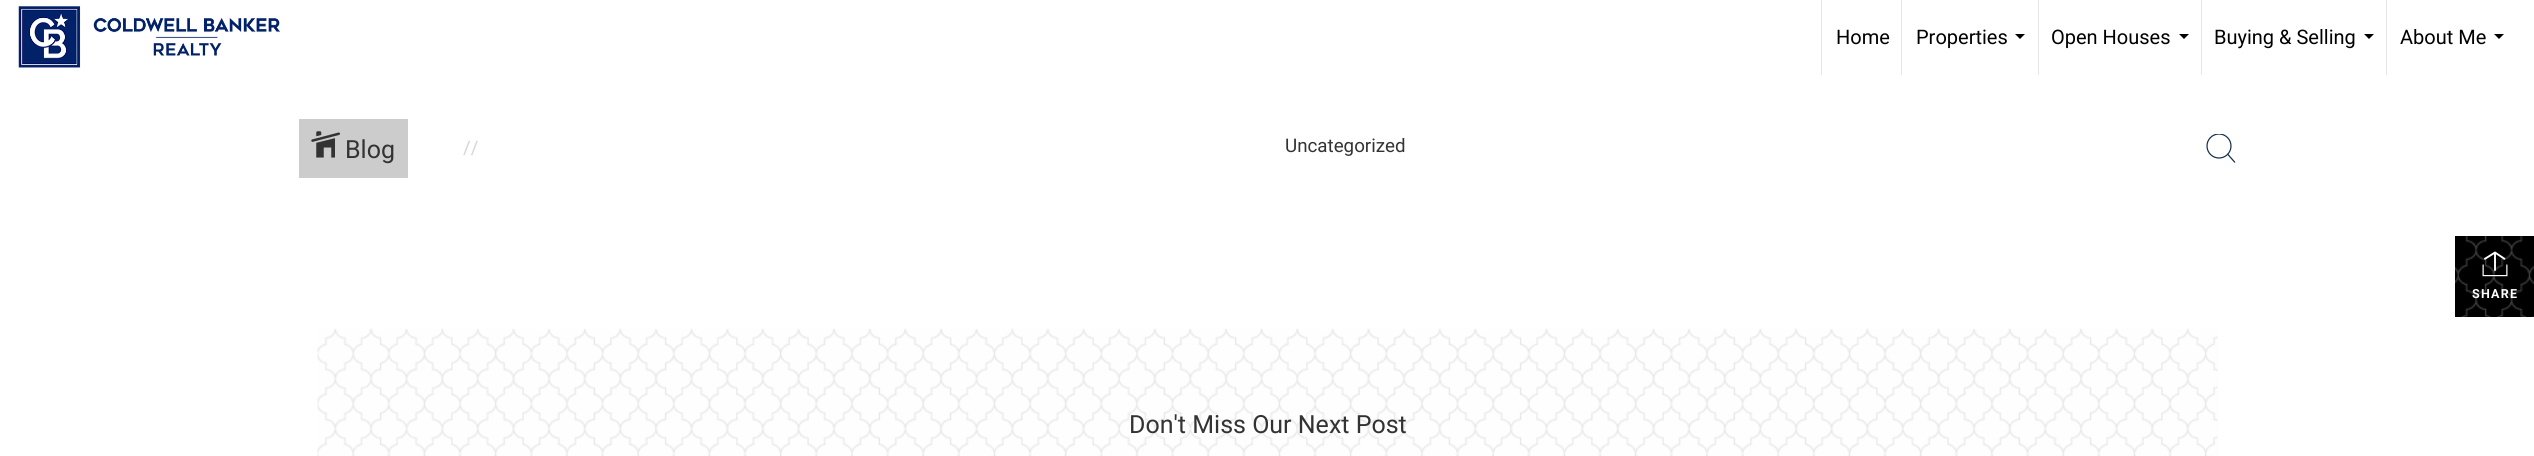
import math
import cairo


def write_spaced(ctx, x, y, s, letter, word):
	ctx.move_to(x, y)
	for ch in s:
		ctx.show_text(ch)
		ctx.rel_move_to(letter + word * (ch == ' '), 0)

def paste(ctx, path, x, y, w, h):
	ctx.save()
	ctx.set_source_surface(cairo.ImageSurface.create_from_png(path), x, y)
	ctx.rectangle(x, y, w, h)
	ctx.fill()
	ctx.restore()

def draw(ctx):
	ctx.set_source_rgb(1, 1, 1)
	ctx.paint()
	paste(ctx, 'media/1.png', 18, 6, 262, 62)
	ctx.set_source_rgb(0.902, 0.902, 0.902)
	ctx.rectangle(1821, 0, 1, 75)
	ctx.fill()
	ctx.select_font_face('Roboto')
	ctx.set_font_size(20)
	ctx.set_source_rgb(0, 0, 0)
	ctx.move_to(1836, 44)
	ctx.show_text('Home')
	ctx.set_source_rgb(0.902, 0.902, 0.902)
	ctx.rectangle(1901, 0, 1, 75)
	ctx.fill()
	ctx.set_source_rgb(0, 0, 0)
	ctx.move_to(1916, 44)
	ctx.show_text('Properties')
	ctx.new_path()
	ctx.move_to(2015, 34)
	ctx.line_to(2025, 34)
	ctx.line_to(2020, 39)
	ctx.close_path()
	ctx.fill()
	ctx.set_source_rgb(0.902, 0.902, 0.902)
	ctx.rectangle(2038, 0, 1, 75)
	ctx.fill()
	ctx.set_source_rgb(0, 0, 0)
	ctx.move_to(2051, 44)
	ctx.show_text('Open Houses')
	ctx.new_path()
	ctx.move_to(2179, 34)
	ctx.line_to(2189, 34)
	ctx.line_to(2184, 39)
	ctx.close_path()
	ctx.fill()
	ctx.set_source_rgb(0.902, 0.902, 0.902)
	ctx.rectangle(2201, 0, 1, 75)
	ctx.fill()
	ctx.set_source_rgb(0, 0, 0)
	ctx.move_to(2214, 44)
	ctx.show_text('Buying & Selling')
	ctx.new_path()
	ctx.move_to(2364, 34)
	ctx.line_to(2374, 34)
	ctx.line_to(2369, 39)
	ctx.close_path()
	ctx.fill()
	ctx.set_source_rgb(0.902, 0.902, 0.902)
	ctx.rectangle(2386, 0, 1, 75)
	ctx.fill()
	ctx.set_source_rgb(0, 0, 0)
	ctx.move_to(2400, 44)
	ctx.show_text('About Me')
	ctx.new_path()
	ctx.move_to(2494, 34)
	ctx.line_to(2504, 34)
	ctx.line_to(2499, 39)
	ctx.close_path()
	ctx.fill()
	ctx.set_source_rgb(0.8, 0.8, 0.8)
	ctx.rectangle(299, 119, 109, 59)
	ctx.fill()
	paste(ctx, 'media/2.png', 311, 131, 29, 27)
	ctx.set_font_size(25)
	ctx.set_source_rgb(0.2, 0.2, 0.2)
	ctx.move_to(345, 158)
	ctx.show_text('Blog')
	ctx.set_font_size(18.75)
	ctx.set_source_rgb(0.835, 0.835, 0.835)
	ctx.move_to(463, 154)
	ctx.show_text('//')
	ctx.set_source_rgb(0.2, 0.2, 0.2)
	ctx.move_to(1285, 152)
	ctx.show_text('Uncategorized')
	ctx.save()
	ctx.rectangle(2206, 134, 30, 30)
	ctx.clip()
	ctx.arc(2219, 146, 12, 0, 2 * math.pi)
	ctx.set_source_rgb(0.055, 0.169, 0.29)
	ctx.set_line_width(1.2)
	ctx.stroke()
	ctx.restore()
	ctx.new_path()
	ctx.move_to(2227.5, 154)
	ctx.line_to(2235, 162.5)
	ctx.set_source_rgb(0.055, 0.169, 0.29)
	ctx.set_line_width(1.2)
	ctx.stroke()
	paste(ctx, 'media/3.png', 2455, 236, 79, 81)
	paste(ctx, 'media/4.png', 2482, 251, 26, 26)
	ctx.select_font_face('Roboto', cairo.FONT_SLANT_NORMAL, cairo.FONT_WEIGHT_BOLD)
	ctx.set_font_size(12.5)
	ctx.set_source_rgb(1, 1, 1)
	write_spaced(ctx, 2472, 298, 'SHARE', 1.25, 0)
	ctx.set_source_rgb(0.988, 0.988, 0.988)
	ctx.rectangle(318, 329, 1900, 127)
	ctx.fill()
	paste(ctx, 'media/5.png', 317, 328, 1901, 128)
	ctx.select_font_face('Roboto')
	ctx.set_font_size(25)
	ctx.set_source_rgb(0.2, 0.2, 0.2)
	ctx.move_to(1129, 433)
	ctx.show_text('Don\'t Miss Our Next Post')


surface = cairo.ImageSurface(cairo.FORMAT_RGB24, 2534, 456)
ctx = cairo.Context(surface)
options = cairo.FontOptions()
options.set_hint_metrics(cairo.HINT_METRICS_OFF)
options.set_hint_style(cairo.HINT_STYLE_NONE)
ctx.set_font_options(options)
ctx.set_miter_limit(4)
draw(ctx)
surface.write_to_png('image.png')
